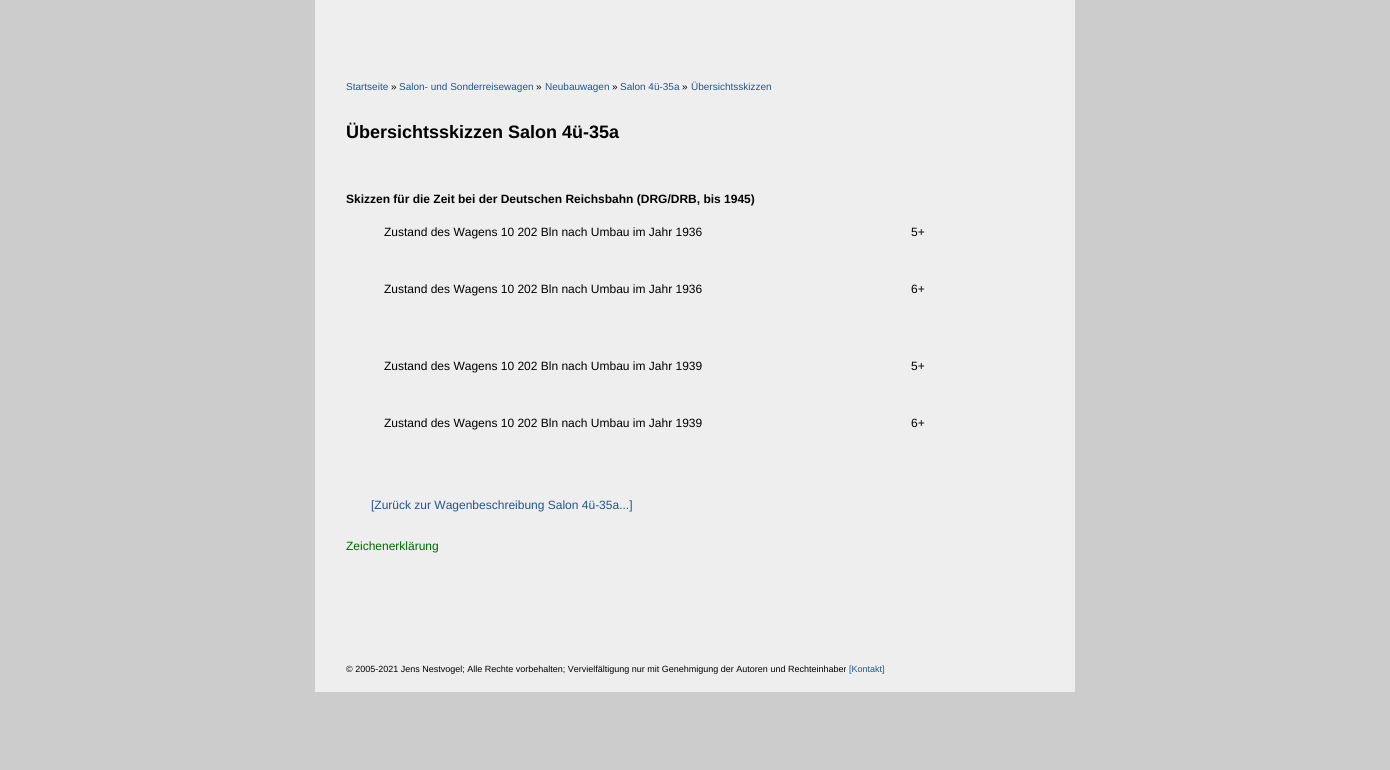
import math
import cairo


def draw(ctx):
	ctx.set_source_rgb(0.8, 0.8, 0.8)
	ctx.paint()
	ctx.set_source_rgb(0.933, 0.933, 0.933)
	ctx.rectangle(315, 0, 760, 692)
	ctx.fill()
	ctx.select_font_face('Liberation Sans')
	ctx.set_font_size(10)
	ctx.set_source_rgb(0.133, 0.333, 0.533)
	ctx.move_to(346, 90)
	ctx.show_text('Startseite')
	ctx.set_source_rgb(0, 0, 0)
	ctx.move_to(391, 90)
	ctx.show_text('»')
	ctx.set_source_rgb(0.133, 0.333, 0.533)
	ctx.move_to(399, 90)
	ctx.show_text('Salon- und Sonderreisewagen')
	ctx.set_source_rgb(0, 0, 0)
	ctx.move_to(536, 90)
	ctx.show_text('»')
	ctx.set_source_rgb(0.133, 0.333, 0.533)
	ctx.move_to(545, 90)
	ctx.show_text('Neubauwagen')
	ctx.set_source_rgb(0, 0, 0)
	ctx.move_to(612, 90)
	ctx.show_text('»')
	ctx.set_source_rgb(0.133, 0.333, 0.533)
	ctx.move_to(620, 90)
	ctx.show_text('Salon 4ü-35a')
	ctx.set_source_rgb(0, 0, 0)
	ctx.move_to(682, 90)
	ctx.show_text('»')
	ctx.set_source_rgb(0.133, 0.333, 0.533)
	ctx.move_to(691, 90)
	ctx.show_text('Übersichtsskizzen')
	ctx.select_font_face('Liberation Sans', cairo.FONT_SLANT_NORMAL, cairo.FONT_WEIGHT_BOLD)
	ctx.set_font_size(18)
	ctx.set_source_rgb(0, 0, 0)
	ctx.move_to(346, 138)
	ctx.show_text('Übersichtsskizzen Salon 4ü-35a')
	ctx.set_font_size(12)
	ctx.move_to(346, 203)
	ctx.show_text('Skizzen für die Zeit bei der Deutschen Reichsbahn (DRG/DRB, bis 1945)')
	ctx.select_font_face('Liberation Sans')
	for x, y, s in [
		(384, 236, 'Zustand des Wagens 10 202 Bln nach Umbau im Jahr 1936'),
		(911, 236, '5+'),
		(384, 293, 'Zustand des Wagens 10 202 Bln nach Umbau im Jahr 1936'),
		(911, 293, '6+'),
		(384, 370, 'Zustand des Wagens 10 202 Bln nach Umbau im Jahr 1939'),
		(911, 370, '5+'),
		(384, 427, 'Zustand des Wagens 10 202 Bln nach Umbau im Jahr 1939'),
		(911, 427, '6+'),
	]:
		ctx.move_to(x, y)
		ctx.show_text(s)
	ctx.set_source_rgb(0.133, 0.333, 0.533)
	ctx.move_to(371, 509)
	ctx.show_text('[Zurück zur Wagenbeschreibung Salon 4ü-35a...]')
	ctx.set_source_rgb(0, 0.4, 0)
	ctx.move_to(346, 550)
	ctx.show_text('Zeichenerklärung')
	ctx.set_font_size(9)
	ctx.set_source_rgb(0, 0, 0)
	ctx.move_to(346, 672)
	ctx.show_text('© 2005-2021 Jens Nestvogel; Alle Rechte vorbehalten; Vervielfältigung nur mit Genehmigung der Autoren und Rechteinhaber')
	ctx.set_source_rgb(0.133, 0.333, 0.533)
	ctx.move_to(849, 672)
	ctx.show_text('[Kontakt]')


surface = cairo.ImageSurface(cairo.FORMAT_RGB24, 1390, 770)
ctx = cairo.Context(surface)
options = cairo.FontOptions()
options.set_hint_metrics(cairo.HINT_METRICS_OFF)
options.set_hint_style(cairo.HINT_STYLE_NONE)
ctx.set_font_options(options)
ctx.set_miter_limit(4)
draw(ctx)
surface.write_to_png('image.png')
